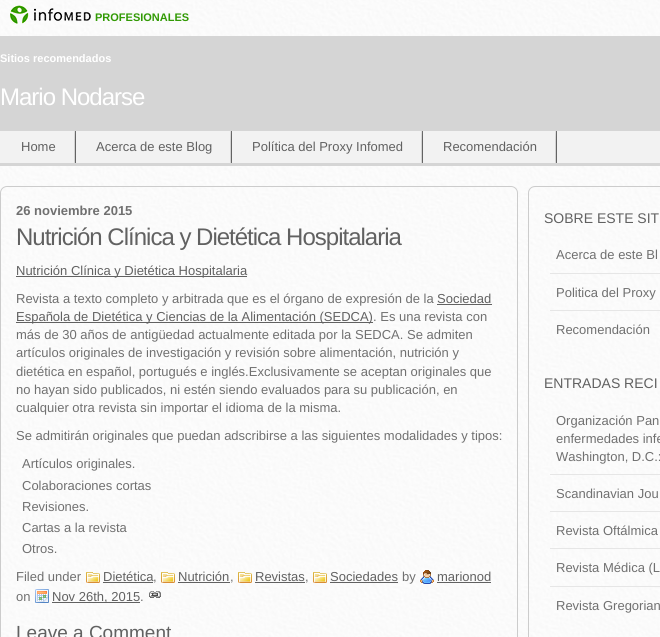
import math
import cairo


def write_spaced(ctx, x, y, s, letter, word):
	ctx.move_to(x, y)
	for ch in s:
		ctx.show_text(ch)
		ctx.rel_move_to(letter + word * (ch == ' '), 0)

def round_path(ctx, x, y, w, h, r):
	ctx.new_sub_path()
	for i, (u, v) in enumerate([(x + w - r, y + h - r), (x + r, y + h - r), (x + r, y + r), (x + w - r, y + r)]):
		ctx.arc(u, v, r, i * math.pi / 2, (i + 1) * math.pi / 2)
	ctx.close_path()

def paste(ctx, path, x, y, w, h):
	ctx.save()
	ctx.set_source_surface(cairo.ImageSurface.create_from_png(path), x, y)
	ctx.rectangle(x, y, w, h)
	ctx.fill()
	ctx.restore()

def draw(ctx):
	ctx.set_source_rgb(1, 1, 1)
	ctx.paint()
	paste(ctx, 'media/1.png', 0, 0, 660, 637)
	paste(ctx, 'media/2.png', 10, 5, 81, 19)
	ctx.select_font_face('Liberation Sans', cairo.FONT_SLANT_NORMAL, cairo.FONT_WEIGHT_BOLD)
	ctx.set_font_size(11)
	ctx.set_source_rgb(0.196, 0.604, 0.02)
	ctx.move_to(95, 21)
	ctx.show_text('PROFESIONALES')
	ctx.set_source_rgb(0.835, 0.835, 0.835)
	ctx.rectangle(0, 36, 660, 95)
	ctx.fill()
	ctx.set_source_rgb(1, 1, 1)
	ctx.move_to(0, 62)
	ctx.show_text('Sitios recomendados')
	ctx.select_font_face('Liberation Sans')
	ctx.set_font_size(24)
	write_spaced(ctx, 0, 105, 'Mario Nodarse', -1, 0)
	ctx.set_source_rgb(0.949, 0.949, 0.949)
	ctx.rectangle(0, 131, 660, 32)
	ctx.fill()
	ctx.set_source_rgb(0.835, 0.835, 0.835)
	ctx.rectangle(0, 163, 660, 3)
	ctx.fill()
	paste(ctx, 'media/3.png', 74, 131, 2, 32)
	ctx.set_font_size(13)
	ctx.set_source_rgb(0.38, 0.38, 0.38)
	ctx.move_to(21, 151)
	ctx.show_text('Home')
	paste(ctx, 'media/3.png', 230, 131, 2, 32)
	ctx.move_to(96, 151)
	ctx.show_text('Acerca de este Blog')
	paste(ctx, 'media/3.png', 421, 131, 2, 32)
	ctx.move_to(252, 151)
	ctx.show_text('Política del Proxy Infomed')
	paste(ctx, 'media/3.png', 555, 131, 2, 32)
	ctx.move_to(443, 151)
	ctx.show_text('Recomendación')
	round_path(ctx, 0.5, 186.5, 517, 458, 6.5)
	ctx.set_source_rgb(0.8, 0.8, 0.8)
	ctx.set_line_width(1)
	ctx.stroke()
	ctx.select_font_face('Liberation Sans', cairo.FONT_SLANT_NORMAL, cairo.FONT_WEIGHT_BOLD)
	ctx.set_source_rgb(0.439, 0.439, 0.439)
	ctx.move_to(16, 215)
	ctx.show_text('26 noviembre 2015')
	ctx.select_font_face('Liberation Sans')
	ctx.set_font_size(24)
	ctx.set_source_rgb(0.38, 0.38, 0.38)
	write_spaced(ctx, 16, 245, 'Nutrición Clínica y Dietética Hospitalaria', -1, 0)
	ctx.rectangle(16, 276, 231, 1)
	ctx.fill()
	ctx.set_font_size(13)
	ctx.move_to(16, 275)
	ctx.show_text('Nutrición Clínica y Dietética Hospitalaria')
	ctx.set_source_rgb(0.439, 0.439, 0.439)
	ctx.move_to(16, 303)
	ctx.show_text('Revista a texto completo y arbitrada que es el órgano de expresión de la')
	ctx.set_source_rgb(0.38, 0.38, 0.38)
	ctx.move_to(437, 303)
	ctx.show_text('Sociedad')
	ctx.rectangle(437, 304, 55, 1)
	ctx.fill()
	ctx.rectangle(16, 322, 357, 1)
	ctx.fill()
	ctx.move_to(16, 321)
	ctx.show_text('Española de Dietética y Ciencias de la Alimentación (SEDCA)')
	ctx.set_source_rgb(0.439, 0.439, 0.439)
	for x, y, s in [
		(373, 321, '. Es una revista con'),
		(16, 339, 'más de 30 años de antigüedad actualmente editada por la SEDCA. Se admiten'),
		(16, 357, 'artículos originales de investigación y revisión sobre alimentación, nutrición y'),
		(16, 376, 'dietética en español, portugués e inglés.Exclusivamente se aceptan originales que'),
		(16, 394, 'no hayan sido publicados, ni estén siendo evaluados para su publicación, en'),
		(16, 412, 'cualquier otra revista sin importar el idioma de la misma.'),
		(16, 440, 'Se admitirán originales que puedan adscribirse a las siguientes modalidades y tipos:'),
		(22, 468, 'Artículos originales.'),
		(22, 490, 'Colaboraciones cortas'),
		(22, 511, 'Revisiones.'),
		(22, 532, 'Cartas a la revista'),
		(22, 553, 'Otros.'),
		(16, 581, 'Filed under'),
	]:
		ctx.move_to(x, y)
		ctx.show_text(s)
	paste(ctx, 'media/4.png', 86, 572, 14, 11)
	ctx.set_source_rgb(0.38, 0.38, 0.38)
	ctx.move_to(103, 581)
	ctx.show_text('Dietética')
	ctx.rectangle(103, 582, 50, 1)
	ctx.fill()
	ctx.set_source_rgb(0.439, 0.439, 0.439)
	ctx.move_to(153, 581)
	ctx.show_text(',')
	paste(ctx, 'media/5.png', 161, 572, 14, 11)
	ctx.set_source_rgb(0.38, 0.38, 0.38)
	ctx.move_to(178, 581)
	ctx.show_text('Nutrición')
	ctx.rectangle(178, 582, 52, 1)
	ctx.fill()
	ctx.set_source_rgb(0.439, 0.439, 0.439)
	ctx.move_to(230, 581)
	ctx.show_text(',')
	paste(ctx, 'media/6.png', 238, 572, 14, 11)
	ctx.set_source_rgb(0.38, 0.38, 0.38)
	ctx.move_to(255, 581)
	ctx.show_text('Revistas')
	ctx.rectangle(255, 582, 50, 1)
	ctx.fill()
	ctx.set_source_rgb(0.439, 0.439, 0.439)
	ctx.move_to(305, 581)
	ctx.show_text(',')
	paste(ctx, 'media/7.png', 313, 572, 14, 11)
	ctx.set_source_rgb(0.38, 0.38, 0.38)
	ctx.move_to(330, 581)
	ctx.show_text('Sociedades')
	ctx.rectangle(330, 582, 68, 1)
	ctx.fill()
	ctx.set_source_rgb(0.439, 0.439, 0.439)
	ctx.move_to(402, 581)
	ctx.show_text('by')
	paste(ctx, 'media/8.png', 420, 570, 14, 14)
	ctx.set_source_rgb(0.38, 0.38, 0.38)
	ctx.move_to(437, 581)
	ctx.show_text('marionod')
	ctx.rectangle(437, 582, 54, 1)
	ctx.fill()
	ctx.set_source_rgb(0.439, 0.439, 0.439)
	ctx.move_to(16, 601)
	ctx.show_text('on')
	paste(ctx, 'media/9.png', 35, 589, 14, 14)
	ctx.set_source_rgb(0.38, 0.38, 0.38)
	ctx.rectangle(52, 602, 88, 1)
	ctx.fill()
	ctx.move_to(52, 601)
	ctx.show_text('Nov 26th, 2015')
	ctx.set_source_rgb(0.439, 0.439, 0.439)
	ctx.move_to(140, 601)
	ctx.show_text('.')
	paste(ctx, 'media/10.png', 149, 591, 12, 7)
	ctx.set_font_size(19)
	ctx.set_source_rgb(0.38, 0.38, 0.38)
	ctx.move_to(16, 639)
	ctx.show_text('Leave a Comment')
	round_path(ctx, 528.5, 186.5, 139, 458, 6.5)
	ctx.set_source_rgb(0.8, 0.8, 0.8)
	ctx.stroke()
	ctx.set_font_size(14)
	ctx.set_source_rgb(0.38, 0.38, 0.38)
	ctx.move_to(544, 223)
	ctx.show_text('SOBRE ESTE SIT')
	ctx.set_font_size(13)
	ctx.set_source_rgb(0.439, 0.439, 0.439)
	ctx.move_to(556, 259)
	ctx.show_text('Acerca de este Bl')
	ctx.set_source_rgb(0.902, 0.902, 0.902)
	ctx.rectangle(550, 273, 110, 1)
	ctx.fill()
	ctx.set_source_rgb(0.439, 0.439, 0.439)
	ctx.move_to(556, 297)
	ctx.show_text('Politica del Proxy')
	ctx.set_source_rgb(0.902, 0.902, 0.902)
	ctx.rectangle(550, 310, 110, 1)
	ctx.fill()
	ctx.set_source_rgb(0.439, 0.439, 0.439)
	ctx.move_to(556, 334)
	ctx.show_text('Recomendación')
	ctx.set_font_size(14)
	ctx.set_source_rgb(0.38, 0.38, 0.38)
	ctx.move_to(544, 388)
	ctx.show_text('ENTRADAS RECI')
	ctx.set_font_size(13)
	ctx.set_source_rgb(0.439, 0.439, 0.439)
	for x, y, s in [
		(556, 425, 'Organización Pan'),
		(556, 443, 'enfermedades infe'),
		(556, 461, 'Washington, D.C.:'),
	]:
		ctx.move_to(x, y)
		ctx.show_text(s)
	ctx.set_source_rgb(0.902, 0.902, 0.902)
	ctx.rectangle(550, 474, 110, 1)
	ctx.fill()
	ctx.set_source_rgb(0.439, 0.439, 0.439)
	ctx.move_to(556, 498)
	ctx.show_text('Scandinavian Jou')
	ctx.set_source_rgb(0.902, 0.902, 0.902)
	ctx.rectangle(550, 511, 110, 1)
	ctx.fill()
	ctx.set_source_rgb(0.439, 0.439, 0.439)
	ctx.move_to(556, 535)
	ctx.show_text('Revista Oftálmica')
	ctx.set_source_rgb(0.902, 0.902, 0.902)
	ctx.rectangle(550, 548, 110, 1)
	ctx.fill()
	ctx.set_source_rgb(0.439, 0.439, 0.439)
	ctx.move_to(556, 572)
	ctx.show_text('Revista Médica (L')
	ctx.set_source_rgb(0.902, 0.902, 0.902)
	ctx.rectangle(550, 586, 110, 1)
	ctx.fill()
	ctx.set_source_rgb(0.439, 0.439, 0.439)
	ctx.move_to(556, 610)
	ctx.show_text('Revista Gregorian')


surface = cairo.ImageSurface(cairo.FORMAT_RGB24, 660, 637)
ctx = cairo.Context(surface)
options = cairo.FontOptions()
options.set_hint_metrics(cairo.HINT_METRICS_OFF)
options.set_hint_style(cairo.HINT_STYLE_NONE)
ctx.set_font_options(options)
ctx.set_miter_limit(4)
draw(ctx)
surface.write_to_png('image.png')
